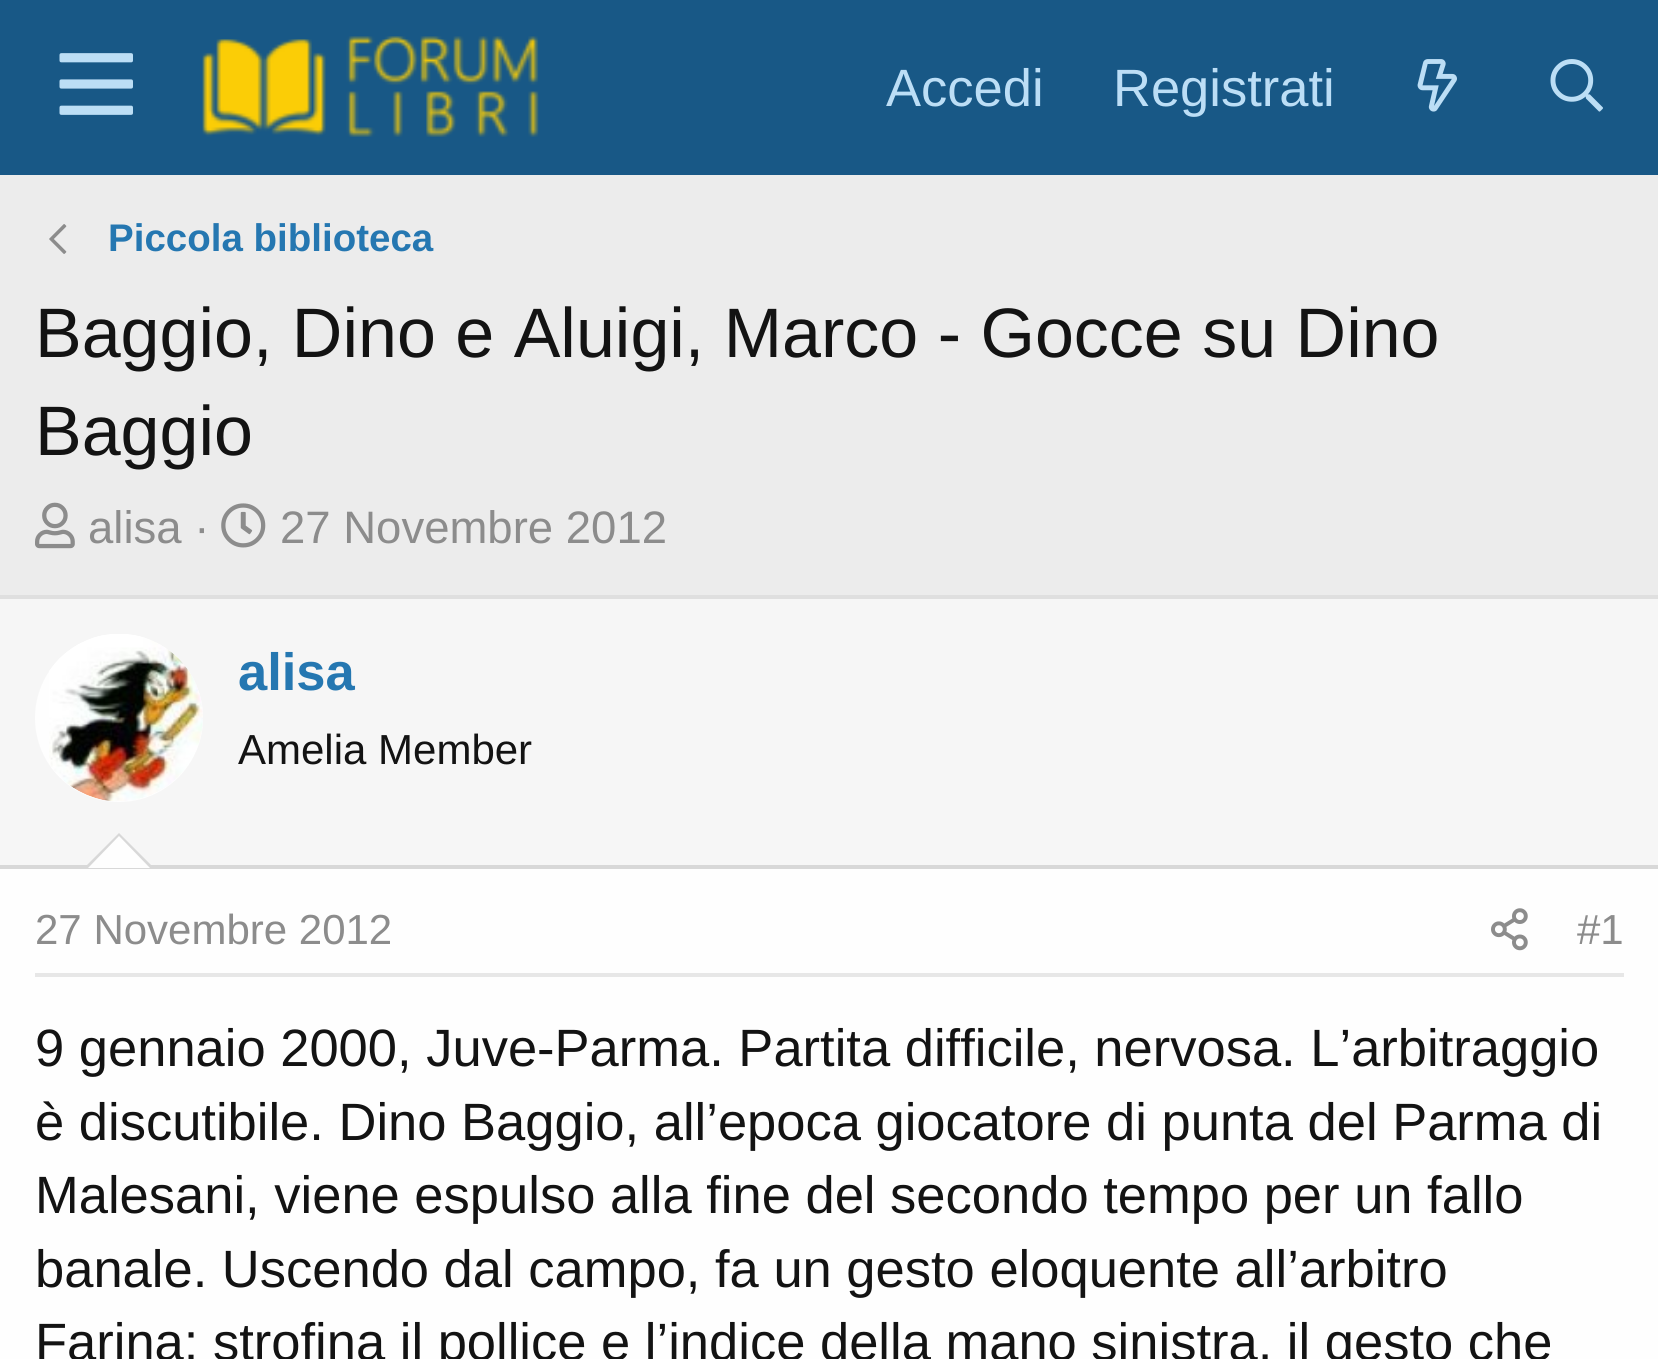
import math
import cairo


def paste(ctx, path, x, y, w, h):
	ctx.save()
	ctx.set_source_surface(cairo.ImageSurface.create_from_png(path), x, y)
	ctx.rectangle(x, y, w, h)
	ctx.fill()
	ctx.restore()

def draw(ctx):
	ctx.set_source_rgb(0.925, 0.925, 0.925)
	ctx.paint()
	ctx.set_source_rgb(0.094, 0.345, 0.525)
	ctx.rectangle(0, 0, 1658, 175)
	ctx.fill()
	paste(ctx, 'media/1.png', 59, 53, 74, 62)
	paste(ctx, 'media/2.png', 202, 36, 337, 101)
	ctx.select_font_face('Liberation Sans')
	ctx.set_font_size(52.5)
	ctx.set_source_rgb(0.737, 0.871, 0.961)
	ctx.move_to(886, 106)
	ctx.show_text('Accedi')
	ctx.move_to(1113, 106)
	ctx.show_text('Registrati')
	paste(ctx, 'media/3.png', 1417, 59, 40, 53)
	paste(ctx, 'media/4.png', 1550, 59, 53, 53)
	paste(ctx, 'media/5.png', 49, 224, 18, 30)
	ctx.select_font_face('Liberation Sans', cairo.FONT_SLANT_NORMAL, cairo.FONT_WEIGHT_BOLD)
	ctx.set_font_size(38.5)
	ctx.set_source_rgb(0.145, 0.467, 0.694)
	ctx.move_to(108, 251)
	ctx.show_text('Piccola biblioteca')
	ctx.select_font_face('Liberation Sans')
	ctx.set_font_size(70)
	ctx.set_source_rgb(0.078, 0.078, 0.078)
	ctx.move_to(35, 357)
	ctx.show_text('Baggio, Dino e Aluigi, Marco - Gocce su Dino')
	ctx.move_to(35, 455)
	ctx.show_text('Baggio')
	paste(ctx, 'media/6.png', 35, 502, 40, 47)
	ctx.set_font_size(45.5)
	ctx.set_source_rgb(0.549, 0.549, 0.549)
	ctx.move_to(88, 543)
	ctx.show_text('alisa ·')
	paste(ctx, 'media/7.png', 221, 503, 45, 45)
	ctx.move_to(280, 543)
	ctx.show_text('27 Novembre 2012')
	ctx.set_source_rgb(0.996, 0.996, 0.996)
	ctx.rectangle(0, 869, 1658, 490)
	ctx.fill()
	ctx.set_source_rgb(0.875, 0.875, 0.875)
	ctx.rectangle(0, 595, 1658, 4)
	ctx.fill()
	ctx.set_source_rgb(0.961, 0.961, 0.961)
	ctx.rectangle(0, 599, 1658, 266)
	ctx.fill()
	ctx.set_source_rgb(0.847, 0.847, 0.847)
	ctx.rectangle(0, 865, 1658, 4)
	ctx.fill()
	ctx.set_source_rgb(0.996, 0.996, 0.996)
	ctx.arc(119, 718, 84, 0, 2 * math.pi)
	ctx.fill()
	paste(ctx, 'media/8.png', 49, 634, 154, 167)
	ctx.select_font_face('Liberation Sans', cairo.FONT_SLANT_NORMAL, cairo.FONT_WEIGHT_BOLD)
	ctx.set_font_size(52.5)
	ctx.set_source_rgb(0.145, 0.467, 0.694)
	ctx.move_to(238, 690)
	ctx.show_text('alisa')
	ctx.select_font_face('Liberation Sans')
	ctx.set_font_size(42)
	ctx.set_source_rgb(0.078, 0.078, 0.078)
	ctx.move_to(238, 764)
	ctx.show_text('Amelia Member')
	ctx.set_source_rgb(0.847, 0.847, 0.847)
	ctx.new_path()
	ctx.move_to(154, 868)
	ctx.line_to(84, 868)
	ctx.line_to(119, 833)
	ctx.close_path()
	ctx.fill()
	ctx.set_source_rgb(0.996, 0.996, 0.996)
	ctx.new_path()
	ctx.move_to(150, 868)
	ctx.line_to(88, 868)
	ctx.line_to(119, 836)
	ctx.close_path()
	ctx.fill()
	ctx.set_source_rgb(0.906, 0.906, 0.906)
	ctx.rectangle(35, 973, 1589, 4)
	ctx.fill()
	ctx.set_source_rgb(0.549, 0.549, 0.549)
	ctx.move_to(35, 944)
	ctx.show_text('27 Novembre 2012')
	paste(ctx, 'media/9.png', 1491, 908, 37, 43)
	ctx.move_to(1577, 944)
	ctx.show_text('#1')
	ctx.set_font_size(52.5)
	ctx.set_source_rgb(0.078, 0.078, 0.078)
	for x, y, s in [
		(35, 1066, '9 gennaio 2000, Juve-Parma. Partita difficile, nervosa. L’arbitraggio'),
		(35, 1140, 'è discutibile. Dino Baggio, all’epoca giocatore di punta del Parma di'),
		(35, 1213, 'Malesani, viene espulso alla fine del secondo tempo per un fallo'),
		(35, 1287, 'banale. Uscendo dal campo, fa un gesto eloquente all’arbitro'),
		(35, 1360, 'Farina: strofina il pollice e l’indice della mano sinistra, il gesto che'),
	]:
		ctx.move_to(x, y)
		ctx.show_text(s)


surface = cairo.ImageSurface(cairo.FORMAT_RGB24, 1658, 1359)
ctx = cairo.Context(surface)
options = cairo.FontOptions()
options.set_hint_metrics(cairo.HINT_METRICS_OFF)
options.set_hint_style(cairo.HINT_STYLE_NONE)
ctx.set_font_options(options)
ctx.set_miter_limit(4)
draw(ctx)
surface.write_to_png('image.png')
